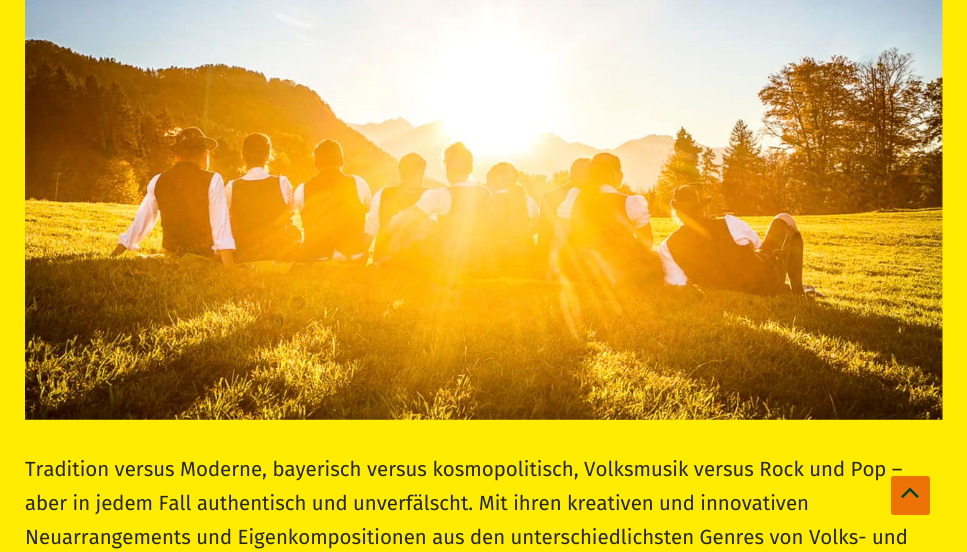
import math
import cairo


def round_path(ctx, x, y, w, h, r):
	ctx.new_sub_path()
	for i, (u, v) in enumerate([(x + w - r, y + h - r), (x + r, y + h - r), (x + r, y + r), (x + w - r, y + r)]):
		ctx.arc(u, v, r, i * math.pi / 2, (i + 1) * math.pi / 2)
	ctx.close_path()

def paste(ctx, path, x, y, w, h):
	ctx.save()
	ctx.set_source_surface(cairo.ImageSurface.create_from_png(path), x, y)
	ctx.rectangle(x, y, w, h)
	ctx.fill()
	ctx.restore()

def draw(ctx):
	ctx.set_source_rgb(1, 0.925, 0)
	ctx.paint()
	paste(ctx, 'media/1.png', 25, 0, 918, 420)
	ctx.select_font_face('Fira Sans')
	ctx.set_font_size(20.5)
	ctx.set_source_rgb(0.149, 0.149, 0.149)
	for x, y, s in [
		(25, 476, 'Tradition versus Moderne, bayerisch versus kosmopolitisch, Volksmusik versus Rock und Pop –'),
		(25, 510, 'aber in jedem Fall authentisch und unverfälscht. Mit ihren kreativen und innovativen'),
		(25, 544, 'Neuarrangements und Eigenkompositionen aus den unterschiedlichsten Genres von Volks- und'),
	]:
		ctx.move_to(x, y)
		ctx.show_text(s)
	ctx.set_source_rgb(0.929, 0.451, 0.031)
	round_path(ctx, 891, 476, 39, 39, 2.5)
	ctx.fill()
	ctx.set_source_rgb(0, 0.263, 0.145)
	ctx.new_path()
	ctx.move_to(919, 496.5)
	ctx.line_to(910, 487.5)
	ctx.line_to(901, 496.5)
	ctx.line_to(903, 498)
	ctx.line_to(910, 491)
	ctx.line_to(917, 498)
	ctx.close_path()
	ctx.fill()


surface = cairo.ImageSurface(cairo.FORMAT_RGB24, 967, 552)
ctx = cairo.Context(surface)
options = cairo.FontOptions()
options.set_hint_metrics(cairo.HINT_METRICS_OFF)
options.set_hint_style(cairo.HINT_STYLE_NONE)
ctx.set_font_options(options)
ctx.set_miter_limit(4)
draw(ctx)
surface.write_to_png('image.png')
